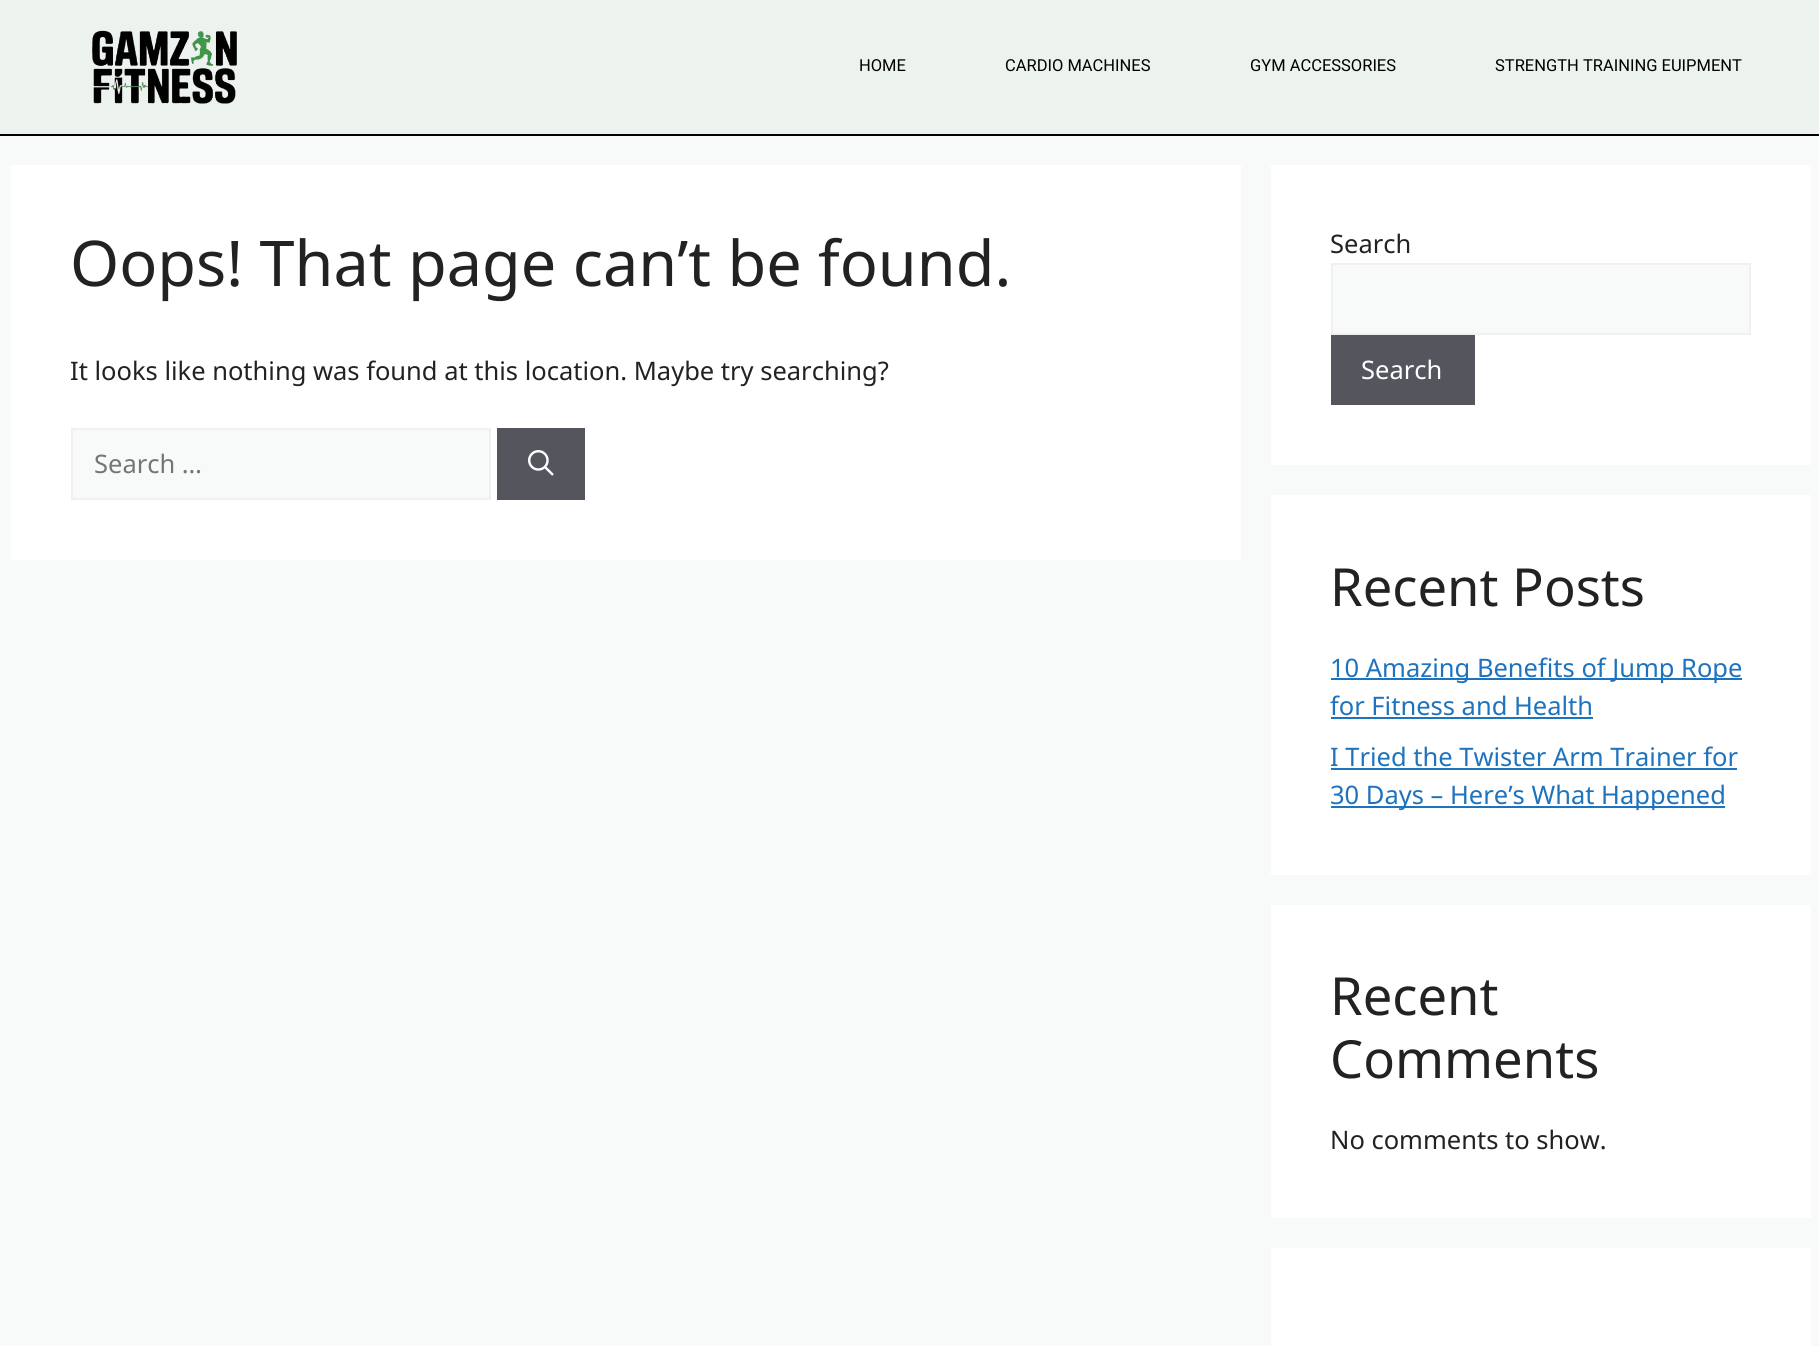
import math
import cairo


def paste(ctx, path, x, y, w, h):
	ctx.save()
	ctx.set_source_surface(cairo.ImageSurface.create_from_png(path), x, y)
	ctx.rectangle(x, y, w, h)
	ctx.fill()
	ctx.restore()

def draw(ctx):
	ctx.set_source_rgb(0.969, 0.973, 0.976)
	ctx.paint()
	ctx.set_source_rgb(0.925, 0.949, 0.929)
	ctx.rectangle(0, 0, 1819, 134)
	ctx.fill()
	ctx.set_source_rgb(0, 0, 0)
	ctx.rectangle(0, 134, 1819, 2)
	ctx.fill()
	paste(ctx, 'media/1.png', 92, 30, 145, 74)
	ctx.select_font_face('Roboto')
	ctx.set_font_size(16.5)
	for x, y, s in [
		(859, 71, 'HOME'),
		(1005, 71, 'CARDIO MACHINES'),
		(1250, 71, 'GYM ACCESSORIES'),
		(1495, 71, 'STRENGTH TRAINING EUIPMENT'),
	]:
		ctx.move_to(x, y)
		ctx.show_text(s)
	ctx.set_source_rgb(1, 1, 1)
	ctx.rectangle(11, 165, 1230, 395)
	ctx.fill()
	ctx.select_font_face('Noto Sans')
	ctx.set_font_size(63)
	ctx.set_source_rgb(0.133, 0.133, 0.133)
	ctx.move_to(70, 286)
	ctx.show_text('Oops! That page can’t be found.')
	ctx.set_font_size(25.5)
	ctx.move_to(70, 380)
	ctx.show_text('It looks like nothing was found at this location. Maybe try searching?')
	ctx.set_source_rgb(0.969, 0.973, 0.976)
	ctx.rectangle(72, 429, 418, 70)
	ctx.fill_preserve()
	ctx.set_source_rgb(0.941, 0.941, 0.941)
	ctx.stroke()
	ctx.set_source_rgb(0.459, 0.459, 0.459)
	ctx.move_to(94, 473)
	ctx.show_text('Search …')
	ctx.set_source_rgb(0.333, 0.333, 0.369)
	ctx.rectangle(497, 428, 88, 72)
	ctx.fill()
	paste(ctx, 'media/2.png', 528, 450, 26, 26)
	ctx.set_source_rgb(1, 1, 1)
	ctx.rectangle(1271, 165, 540, 300)
	ctx.fill()
	ctx.set_source_rgb(0.133, 0.133, 0.133)
	ctx.move_to(1330, 253)
	ctx.show_text('Search')
	ctx.set_source_rgb(0.969, 0.973, 0.976)
	ctx.rectangle(1332, 264, 418, 70)
	ctx.fill_preserve()
	ctx.set_source_rgb(0.941, 0.941, 0.941)
	ctx.stroke()
	ctx.set_source_rgb(0.333, 0.333, 0.369)
	ctx.rectangle(1331, 335, 144, 70)
	ctx.fill()
	ctx.set_source_rgb(1, 1, 1)
	ctx.move_to(1361, 379)
	ctx.show_text('Search')
	ctx.rectangle(1271, 495, 540, 380)
	ctx.fill()
	ctx.set_font_size(52.5)
	ctx.set_source_rgb(0.133, 0.133, 0.133)
	ctx.move_to(1330, 606)
	ctx.show_text('Recent Posts')
	ctx.set_source_rgb(0.118, 0.451, 0.745)
	ctx.rectangle(1331, 678, 411, 2)
	ctx.fill()
	ctx.set_font_size(25.5)
	ctx.move_to(1330, 677)
	ctx.show_text('10 Amazing Benefits of Jump Rope')
	ctx.move_to(1330, 715)
	ctx.show_text('for Fitness and Health')
	ctx.rectangle(1331, 717, 262, 2)
	ctx.fill()
	ctx.move_to(1330, 766)
	ctx.show_text('I Tried the Twister Arm Trainer for')
	ctx.rectangle(1331, 768, 406, 2)
	ctx.fill()
	ctx.rectangle(1331, 806, 394, 2)
	ctx.fill()
	ctx.move_to(1330, 804)
	ctx.show_text('30 Days – Here’s What Happened')
	ctx.set_source_rgb(1, 1, 1)
	ctx.rectangle(1271, 905, 540, 313)
	ctx.fill()
	ctx.set_font_size(52.5)
	ctx.set_source_rgb(0.133, 0.133, 0.133)
	ctx.move_to(1330, 1015)
	ctx.show_text('Recent')
	ctx.move_to(1330, 1078)
	ctx.show_text('Comments')
	ctx.set_font_size(25.5)
	ctx.move_to(1330, 1149)
	ctx.show_text('No comments to show.')
	ctx.set_source_rgb(1, 1, 1)
	ctx.rectangle(1271, 1248, 540, 98)
	ctx.fill()


surface = cairo.ImageSurface(cairo.FORMAT_RGB24, 1819, 1346)
ctx = cairo.Context(surface)
options = cairo.FontOptions()
options.set_hint_metrics(cairo.HINT_METRICS_OFF)
options.set_hint_style(cairo.HINT_STYLE_NONE)
ctx.set_font_options(options)
ctx.set_miter_limit(4)
draw(ctx)
surface.write_to_png('image.png')
